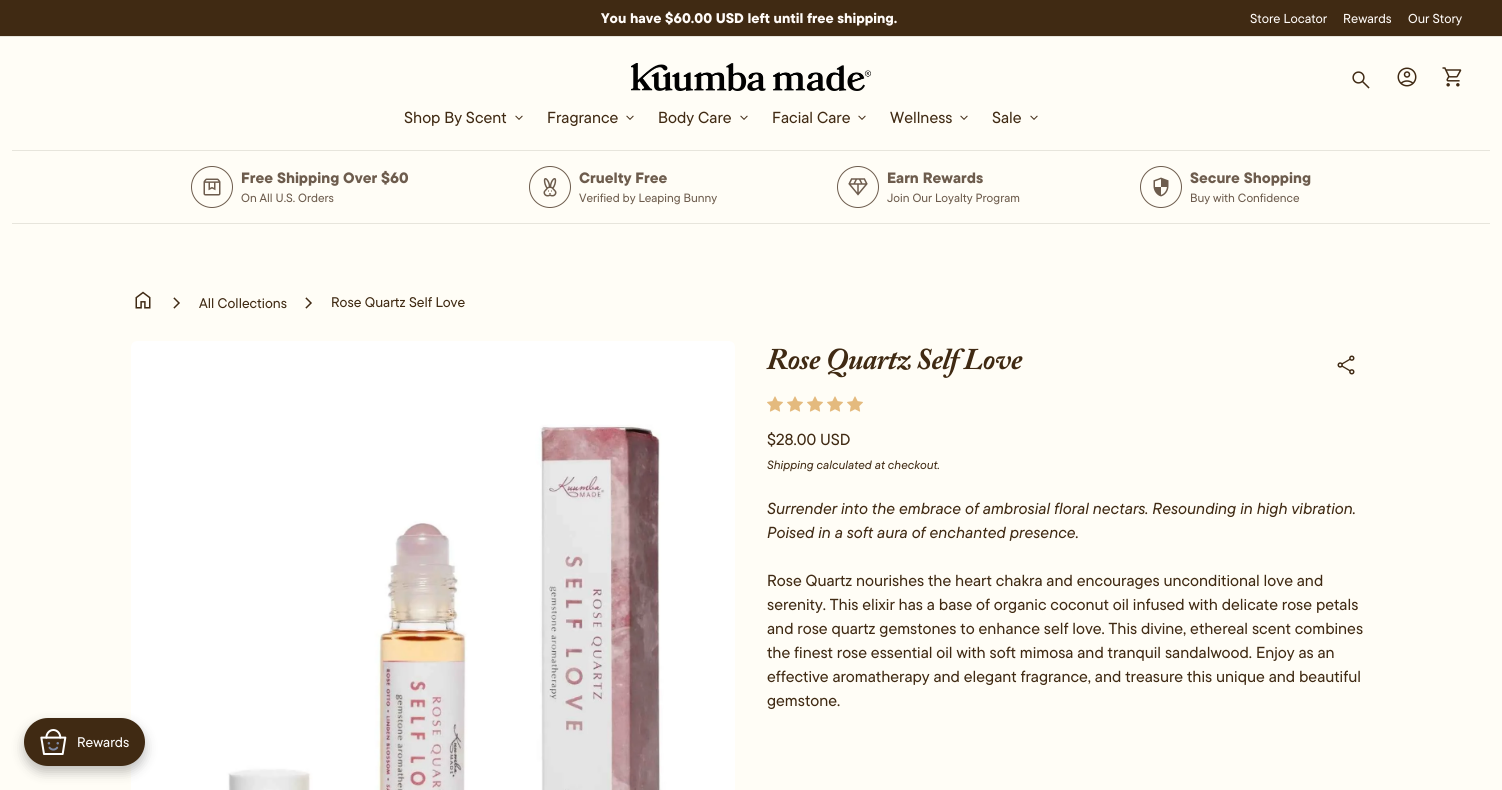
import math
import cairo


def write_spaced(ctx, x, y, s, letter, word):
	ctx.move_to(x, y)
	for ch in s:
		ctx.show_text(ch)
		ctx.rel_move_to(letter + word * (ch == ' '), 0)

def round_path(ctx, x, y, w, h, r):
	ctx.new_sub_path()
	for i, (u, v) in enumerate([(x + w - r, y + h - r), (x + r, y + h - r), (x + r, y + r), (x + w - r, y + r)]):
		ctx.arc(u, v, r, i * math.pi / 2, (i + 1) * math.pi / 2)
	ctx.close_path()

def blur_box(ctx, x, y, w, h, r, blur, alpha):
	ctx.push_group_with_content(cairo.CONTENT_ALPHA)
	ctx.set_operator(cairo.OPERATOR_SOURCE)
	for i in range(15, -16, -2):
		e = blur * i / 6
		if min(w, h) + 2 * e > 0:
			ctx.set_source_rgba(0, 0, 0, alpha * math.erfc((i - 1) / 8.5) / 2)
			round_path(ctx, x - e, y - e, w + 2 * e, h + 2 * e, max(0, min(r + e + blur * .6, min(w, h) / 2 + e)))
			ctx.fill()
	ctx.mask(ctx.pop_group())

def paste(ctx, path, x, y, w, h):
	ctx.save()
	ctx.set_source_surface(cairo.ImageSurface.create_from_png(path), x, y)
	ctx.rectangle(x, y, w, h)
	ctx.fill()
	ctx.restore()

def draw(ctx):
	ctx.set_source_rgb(1, 0.992, 0.961)
	ctx.paint()
	ctx.set_source_rgb(0.251, 0.165, 0.078)
	ctx.rectangle(0, 0, 1502, 36)
	ctx.fill()
	ctx.select_font_face('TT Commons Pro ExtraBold')
	ctx.set_font_size(14)
	ctx.set_source_rgb(1, 0.984, 0.969)
	ctx.move_to(601, 23)
	ctx.show_text('You have $60.00 USD left until free shipping.')
	ctx.select_font_face('TT Commons Pro Medium')
	ctx.set_font_size(13)
	for x, y, s in [
		(1250, 23, 'Store Locator'),
		(1343, 23, 'Rewards'),
		(1408, 23, 'Our Story'),
	]:
		ctx.move_to(x, y)
		ctx.show_text(s)
	ctx.set_source_rgb(0.906, 0.898, 0.863)
	ctx.rectangle(0, 36, 1502, 1)
	ctx.fill()
	paste(ctx, 'media/1.png', 631, 63, 240, 28)
	paste(ctx, 'media/2.png', 1352, 71, 18, 18)
	paste(ctx, 'media/3.png', 1397, 67, 20, 20)
	paste(ctx, 'media/4.png', 1442, 67, 20, 20)
	ctx.set_font_size(16)
	ctx.set_source_rgb(0.251, 0.165, 0.078)
	ctx.move_to(404, 123)
	ctx.show_text('Shop By Scent')
	paste(ctx, 'media/5.png', 515, 115, 8, 5)
	ctx.move_to(547, 123)
	ctx.show_text('Fragrance')
	paste(ctx, 'media/5.png', 626, 115, 8, 5)
	ctx.move_to(658, 123)
	ctx.show_text('Body Care')
	paste(ctx, 'media/5.png', 740, 115, 8, 5)
	ctx.move_to(772, 123)
	ctx.show_text('Facial Care')
	paste(ctx, 'media/5.png', 858, 115, 8, 5)
	ctx.move_to(890, 123)
	ctx.show_text('Wellness')
	paste(ctx, 'media/5.png', 960, 115, 8, 5)
	ctx.move_to(992, 123)
	ctx.show_text('Sale')
	paste(ctx, 'media/5.png', 1030, 115, 8, 5)
	ctx.set_source_rgb(0.906, 0.898, 0.863)
	ctx.rectangle(12, 150, 1478, 1)
	ctx.fill()
	ctx.arc(212, 187, 20.5, 0, 2 * math.pi)
	ctx.set_source_rgb(0.427, 0.361, 0.302)
	ctx.set_line_width(1)
	ctx.stroke()
	paste(ctx, 'media/6.png', 203, 178, 18, 18)
	ctx.select_font_face('TT Commons Pro ExtraBold')
	ctx.set_font_size(15)
	ctx.move_to(241, 183)
	ctx.show_text('Free Shipping Over $60')
	ctx.select_font_face('TT Commons Pro Medium')
	ctx.set_font_size(12)
	ctx.move_to(241, 202)
	ctx.show_text('On All U.S. Orders')
	ctx.new_path()
	ctx.arc(550, 187, 20.5, 0, 2 * math.pi)
	ctx.stroke()
	paste(ctx, 'media/7.png', 543, 178, 14, 19)
	ctx.select_font_face('TT Commons Pro ExtraBold')
	ctx.set_font_size(15)
	ctx.move_to(579, 183)
	ctx.show_text('Cruelty Free')
	ctx.select_font_face('TT Commons Pro Medium')
	ctx.set_font_size(12)
	ctx.move_to(579, 202)
	ctx.show_text('Verified by Leaping Bunny')
	ctx.new_path()
	ctx.arc(858, 187, 20.5, 0, 2 * math.pi)
	ctx.stroke()
	paste(ctx, 'media/8.png', 848, 178, 20, 18)
	ctx.select_font_face('TT Commons Pro ExtraBold')
	ctx.set_font_size(15)
	ctx.move_to(887, 183)
	ctx.show_text('Earn Rewards')
	ctx.select_font_face('TT Commons Pro Medium')
	ctx.set_font_size(12)
	ctx.move_to(887, 202)
	ctx.show_text('Join Our Loyalty Program')
	ctx.new_path()
	ctx.arc(1161, 187, 20.5, 0, 2 * math.pi)
	ctx.stroke()
	paste(ctx, 'media/9.png', 1153, 177, 16, 20)
	ctx.select_font_face('TT Commons Pro ExtraBold')
	ctx.set_font_size(15)
	ctx.move_to(1190, 183)
	ctx.show_text('Secure Shopping')
	ctx.select_font_face('TT Commons Pro Medium')
	ctx.set_font_size(12)
	ctx.move_to(1190, 202)
	ctx.show_text('Buy with Confidence')
	ctx.set_source_rgb(0.906, 0.898, 0.863)
	ctx.rectangle(12, 223, 1478, 1)
	ctx.fill()
	paste(ctx, 'media/10.png', 135, 291, 16, 18)
	paste(ctx, 'media/11.png', 173, 297, 7, 12)
	ctx.set_font_size(14)
	ctx.set_source_rgb(0.251, 0.165, 0.078)
	ctx.move_to(199, 308)
	ctx.show_text('All Collections')
	paste(ctx, 'media/11.png', 305, 297, 7, 12)
	ctx.move_to(331, 307)
	ctx.show_text('Rose Quartz Self Love')
	paste(ctx, 'media/12.png', 131, 341, 604, 449)
	ctx.select_font_face('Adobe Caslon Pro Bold', cairo.FONT_SLANT_ITALIC, cairo.FONT_WEIGHT_BOLD)
	ctx.set_font_size(30)
	write_spaced(ctx, 767, 369, 'Rose Quartz Self Love', -0.6, 0)
	paste(ctx, 'media/13.png', 1337, 355, 18, 20)
	paste(ctx, 'media/14.png', 767, 396, 16, 16)
	paste(ctx, 'media/14.png', 787, 396, 16, 16)
	paste(ctx, 'media/14.png', 807, 396, 16, 16)
	paste(ctx, 'media/14.png', 827, 396, 16, 16)
	paste(ctx, 'media/14.png', 847, 396, 16, 16)
	ctx.select_font_face('TT Commons Pro Medium')
	ctx.set_font_size(16)
	ctx.move_to(767, 445)
	ctx.show_text('$28.00 USD')
	ctx.select_font_face('TT Commons Pro Medium', cairo.FONT_SLANT_ITALIC)
	ctx.set_font_size(12)
	ctx.move_to(767, 469)
	ctx.show_text('Shipping calculated at checkout.')
	ctx.set_font_size(16)
	ctx.move_to(767, 514)
	ctx.show_text('Surrender into the embrace of ambrosial floral nectars. Resounding in high vibration.')
	ctx.move_to(767, 538)
	ctx.show_text('Poised in a soft aura of enchanted presence.')
	ctx.select_font_face('TT Commons Pro Medium')
	for x, y, s in [
		(767, 586, 'Rose Quartz nourishes the heart chakra and encourages unconditional love and'),
		(767, 610, 'serenity. This elixir has a base of organic coconut oil infused with delicate rose petals'),
		(767, 634, 'and rose quartz gemstones to enhance self love. This divine, ethereal scent combines'),
		(767, 658, 'the finest rose essential oil with soft mimosa and tranquil sandalwood. Enjoy as an'),
		(767, 682, 'effective aromatherapy and elegant fragrance, and treasure this unique and beautiful'),
		(767, 706, 'gemstone.'),
	]:
		ctx.move_to(x, y)
		ctx.show_text(s)
	ctx.set_source_rgb(0, 0, 0)
	blur_box(ctx, 24, 724, 121, 48, 24, 6, 0.25)
	ctx.set_source_rgb(0.251, 0.165, 0.078)
	round_path(ctx, 24, 718, 121, 48, 24)
	ctx.fill()
	paste(ctx, 'media/15.png', 40, 729, 27, 26)
	ctx.set_font_size(14)
	ctx.set_source_rgb(1, 1, 1)
	ctx.move_to(77, 747)
	ctx.show_text('Rewards')


surface = cairo.ImageSurface(cairo.FORMAT_RGB24, 1502, 790)
ctx = cairo.Context(surface)
options = cairo.FontOptions()
options.set_hint_metrics(cairo.HINT_METRICS_OFF)
options.set_hint_style(cairo.HINT_STYLE_NONE)
ctx.set_font_options(options)
ctx.set_miter_limit(4)
draw(ctx)
surface.write_to_png('image.png')
